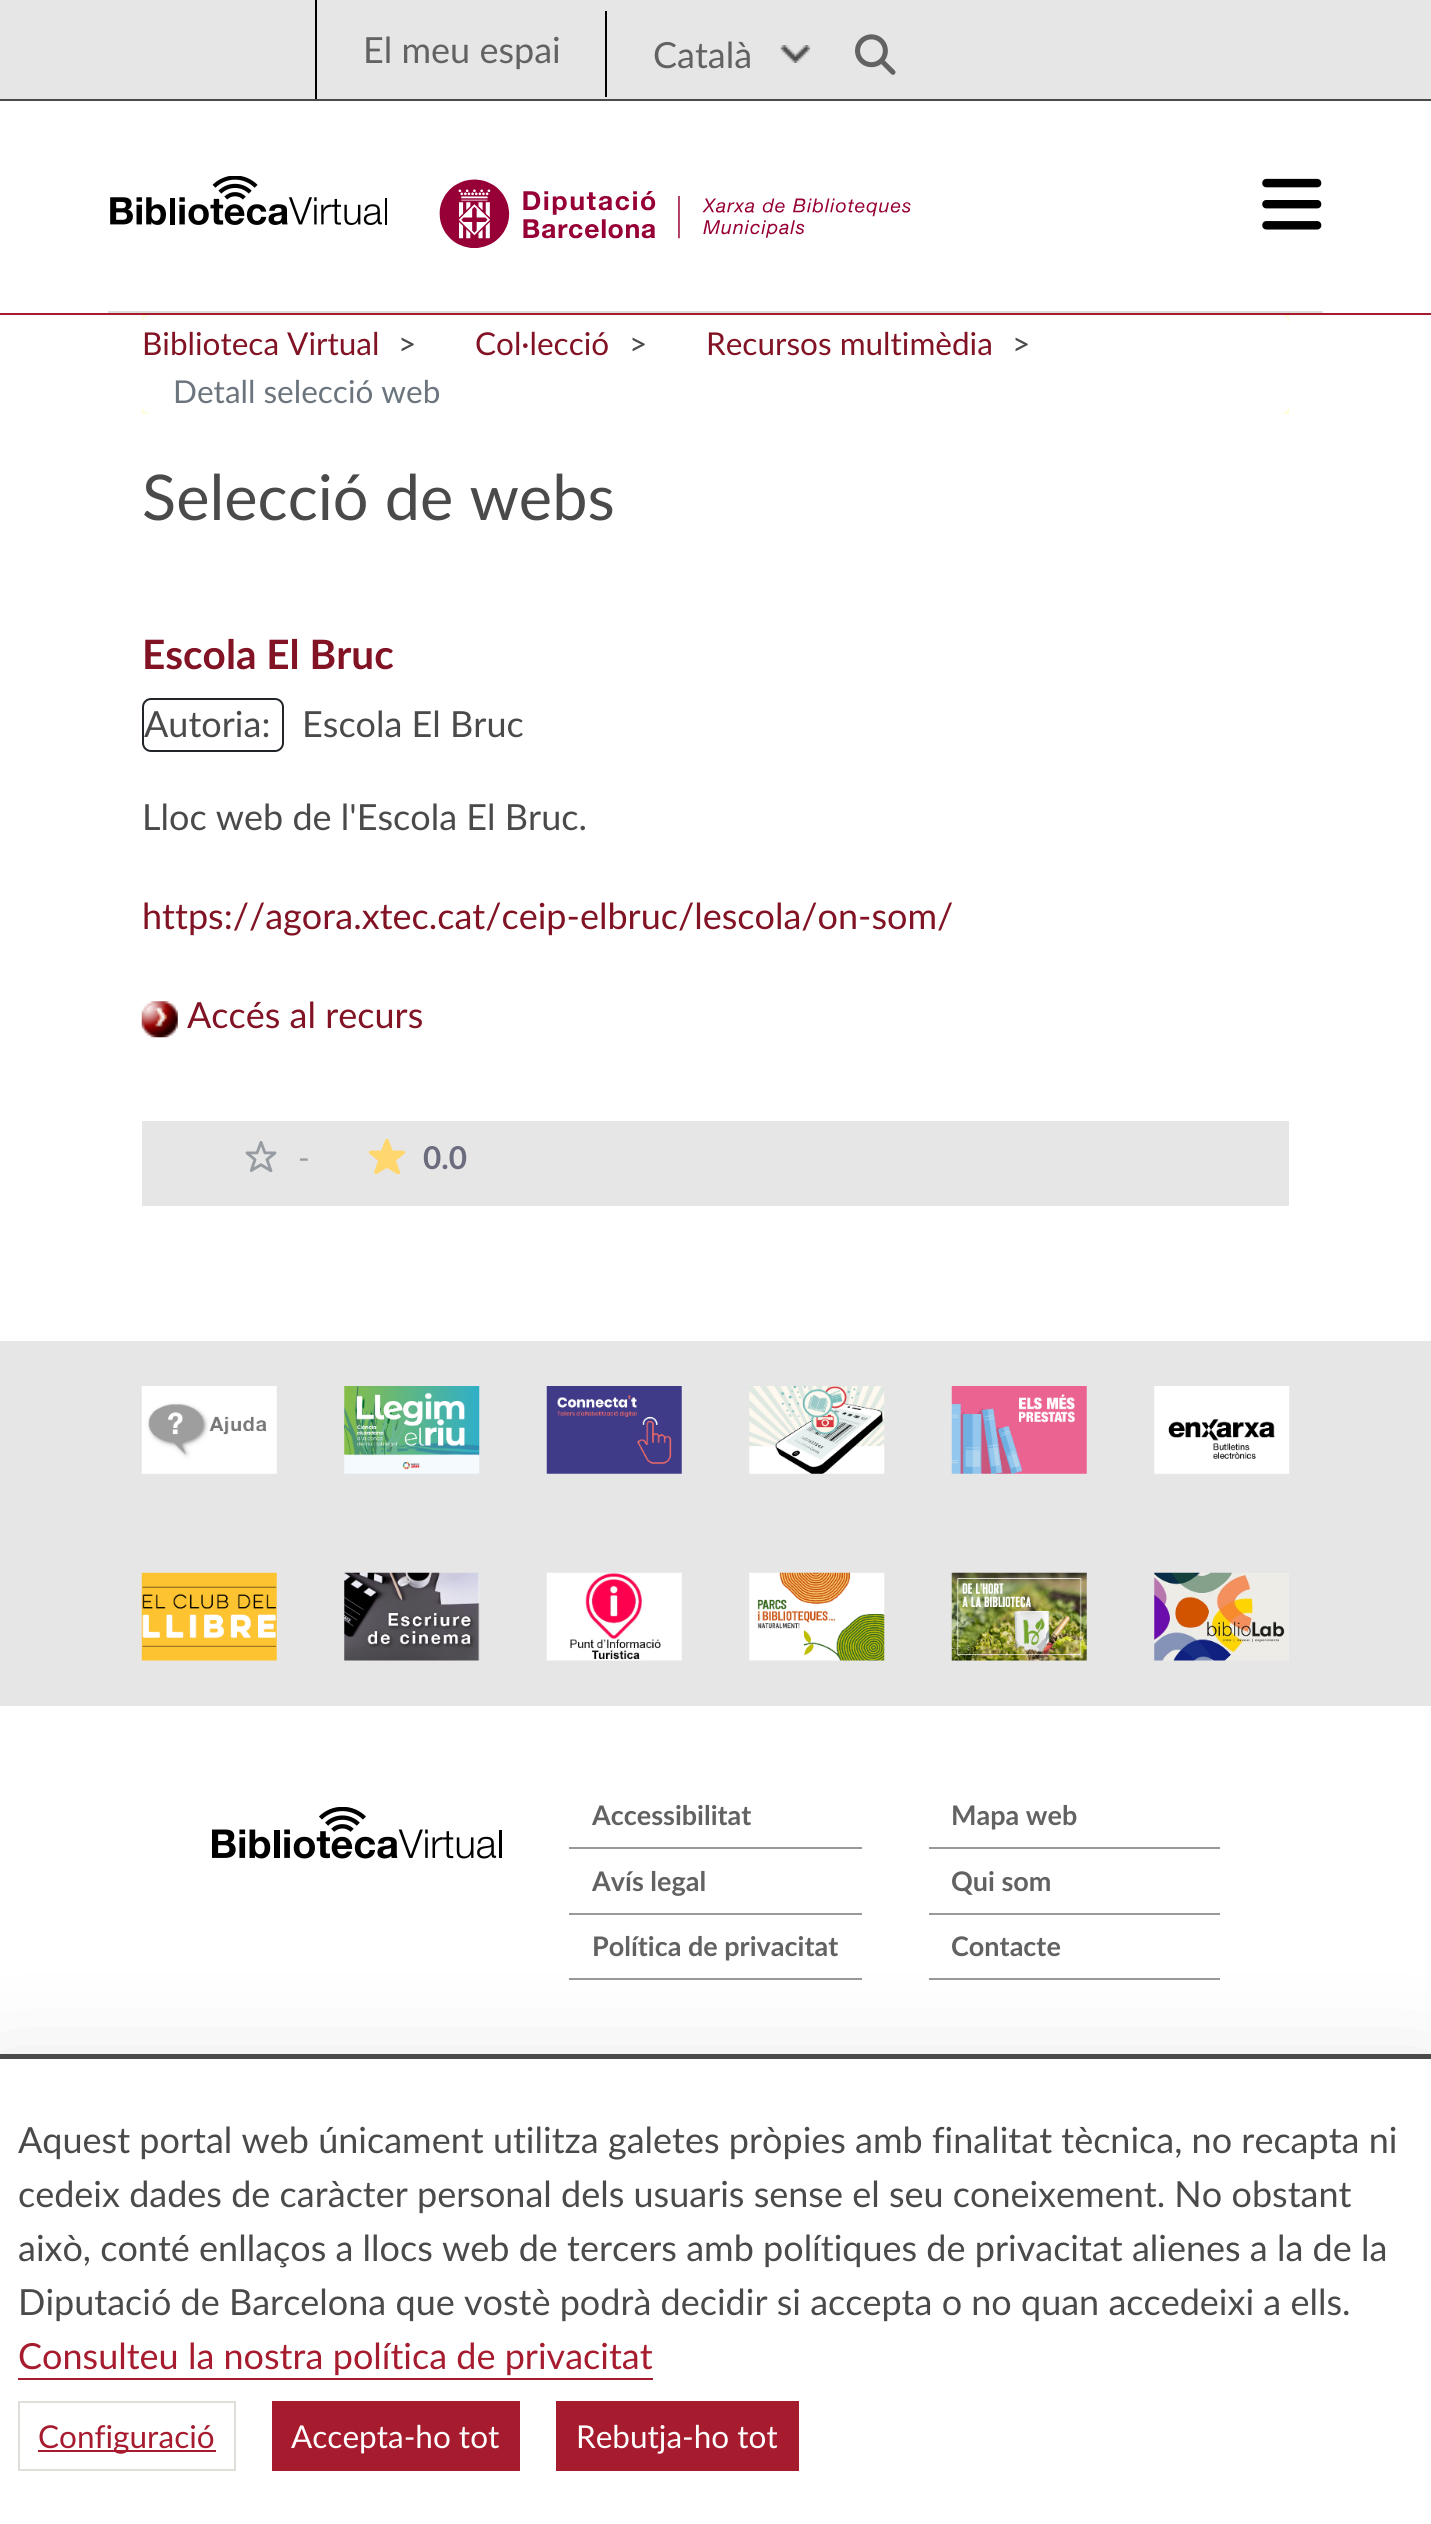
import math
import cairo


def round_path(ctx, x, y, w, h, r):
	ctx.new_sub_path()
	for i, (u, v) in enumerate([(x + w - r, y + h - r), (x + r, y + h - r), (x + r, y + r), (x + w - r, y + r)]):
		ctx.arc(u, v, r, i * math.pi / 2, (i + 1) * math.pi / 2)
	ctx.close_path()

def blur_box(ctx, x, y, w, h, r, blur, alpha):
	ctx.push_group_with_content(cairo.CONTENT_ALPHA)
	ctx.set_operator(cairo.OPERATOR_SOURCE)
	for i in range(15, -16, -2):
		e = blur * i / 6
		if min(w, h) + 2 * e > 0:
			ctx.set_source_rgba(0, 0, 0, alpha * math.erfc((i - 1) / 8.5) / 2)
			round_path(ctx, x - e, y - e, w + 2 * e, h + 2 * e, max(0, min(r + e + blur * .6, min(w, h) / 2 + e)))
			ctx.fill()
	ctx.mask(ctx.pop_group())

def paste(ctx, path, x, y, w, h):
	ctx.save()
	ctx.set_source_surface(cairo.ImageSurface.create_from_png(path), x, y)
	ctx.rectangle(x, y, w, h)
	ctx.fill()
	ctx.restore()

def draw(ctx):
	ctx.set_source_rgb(1, 1, 1)
	ctx.paint()
	ctx.set_source_rgb(0.902, 0.902, 0.902)
	ctx.rectangle(0, 0, 1431, 99)
	ctx.fill()
	ctx.set_source_rgb(0.29, 0.29, 0.29)
	ctx.rectangle(0, 99, 1431, 2)
	ctx.fill()
	ctx.set_source_rgb(0, 0, 0)
	ctx.rectangle(315, 0, 2, 99)
	ctx.fill()
	ctx.select_font_face('Lato')
	ctx.set_font_size(36)
	ctx.set_source_rgb(0.384, 0.384, 0.384)
	ctx.move_to(363, 63)
	ctx.show_text('El meu espai')
	ctx.set_source_rgb(0, 0, 0)
	ctx.rectangle(605, 11, 2, 86)
	ctx.fill()
	paste(ctx, 'media/1.png', 780, 45, 30, 18)
	ctx.set_source_rgb(0.384, 0.384, 0.384)
	ctx.move_to(653, 68)
	ctx.show_text('Català')
	paste(ctx, 'media/2.png', 855, 34, 41, 41)
	ctx.set_source_rgb(0.875, 0.875, 0.855)
	ctx.rectangle(108, 311, 1215, 2)
	ctx.fill()
	paste(ctx, 'media/3.png', 110, 176, 277, 49)
	paste(ctx, 'media/4.png', 439, 179, 472, 69)
	paste(ctx, 'media/5.png', 1262, 178, 60, 52)
	ctx.set_source_rgb(0.655, 0.106, 0.18)
	ctx.rectangle(0, 313, 1431, 2)
	ctx.fill()
	ctx.set_source_rgb(1, 0.996, 0.851)
	ctx.rectangle(142, 315, 1147, 99)
	ctx.fill()
	ctx.set_source_rgb(1, 1, 1)
	round_path(ctx, 142, 315, 1147, 99, 9)
	ctx.fill()
	ctx.set_font_size(31.5)
	ctx.set_source_rgb(0.506, 0.078, 0.141)
	ctx.move_to(142, 355)
	ctx.show_text('Biblioteca Virtual')
	ctx.set_source_rgb(0.29, 0.29, 0.29)
	ctx.move_to(398, 355)
	ctx.show_text('>')
	ctx.set_source_rgb(0.506, 0.078, 0.141)
	ctx.move_to(475, 355)
	ctx.show_text('Col·lecció')
	ctx.set_source_rgb(0.29, 0.29, 0.29)
	ctx.move_to(629, 355)
	ctx.show_text('>')
	ctx.set_source_rgb(0.506, 0.078, 0.141)
	ctx.move_to(706, 355)
	ctx.show_text('Recursos multimèdia')
	ctx.set_source_rgb(0.29, 0.29, 0.29)
	ctx.move_to(1012, 355)
	ctx.show_text('>')
	ctx.set_source_rgb(0.424, 0.459, 0.49)
	ctx.move_to(173, 403)
	ctx.show_text('Detall selecció web')
	ctx.set_font_size(63)
	ctx.set_source_rgb(0.29, 0.29, 0.29)
	ctx.move_to(142, 520)
	ctx.show_text('Selecció de webs')
	ctx.select_font_face('Lato', cairo.FONT_SLANT_NORMAL, cairo.FONT_WEIGHT_BOLD)
	ctx.set_font_size(40.5)
	ctx.set_source_rgb(0.506, 0.078, 0.141)
	ctx.move_to(142, 669)
	ctx.show_text('Escola El Bruc')
	round_path(ctx, 143, 699, 140, 52, 8)
	ctx.set_source_rgb(0.129, 0.145, 0.161)
	ctx.stroke()
	ctx.select_font_face('Lato')
	ctx.set_font_size(36)
	ctx.set_source_rgb(0.29, 0.29, 0.29)
	for x, y, s in [
		(144, 737, 'Autoria:'),
		(302, 737, 'Escola El Bruc'),
		(142, 830, 'Lloc web de l\'Escola El Bruc.'),
	]:
		ctx.move_to(x, y)
		ctx.show_text(s)
	ctx.set_source_rgb(0.506, 0.078, 0.141)
	ctx.move_to(142, 929)
	ctx.show_text('https://agora.xtec.cat/ceip-elbruc/lescola/on-som/')
	paste(ctx, 'media/6.png', 141, 1001, 37, 37)
	ctx.move_to(187, 1028)
	ctx.show_text('Accés al recurs')
	ctx.set_source_rgb(0.902, 0.902, 0.902)
	ctx.rectangle(142, 1121, 1147, 85)
	ctx.fill()
	paste(ctx, 'media/7.png', 245, 1141, 32, 31)
	ctx.set_font_size(31.5)
	ctx.set_source_rgb(0.592, 0.616, 0.635)
	ctx.move_to(298, 1169)
	ctx.show_text('-')
	paste(ctx, 'media/8.png', 369, 1138, 36, 37)
	ctx.select_font_face('Lato', cairo.FONT_SLANT_NORMAL, cairo.FONT_WEIGHT_BOLD)
	ctx.set_source_rgb(0.42, 0.424, 0.494)
	ctx.move_to(423, 1169)
	ctx.show_text('0.0')
	ctx.set_source_rgb(0.902, 0.902, 0.902)
	ctx.rectangle(0, 1341, 1431, 365)
	ctx.fill()
	paste(ctx, 'media/9.png', 141, 1386, 136, 88)
	paste(ctx, 'media/10.png', 344, 1386, 136, 88)
	paste(ctx, 'media/11.png', 546, 1386, 136, 88)
	paste(ctx, 'media/12.png', 749, 1386, 136, 88)
	paste(ctx, 'media/13.png', 951, 1386, 136, 88)
	paste(ctx, 'media/14.png', 1154, 1386, 136, 88)
	paste(ctx, 'media/15.png', 141, 1572, 136, 89)
	paste(ctx, 'media/16.png', 344, 1572, 136, 89)
	paste(ctx, 'media/17.png', 546, 1572, 136, 89)
	paste(ctx, 'media/18.png', 749, 1572, 136, 89)
	paste(ctx, 'media/19.png', 951, 1572, 136, 89)
	paste(ctx, 'media/20.png', 1154, 1572, 135, 89)
	paste(ctx, 'media/21.png', 212, 1807, 290, 52)
	ctx.set_source_rgb(0.6, 0.6, 0.6)
	ctx.rectangle(569, 1847, 293, 2)
	ctx.fill()
	ctx.set_font_size(27)
	ctx.set_source_rgb(0.384, 0.384, 0.384)
	ctx.move_to(592, 1825)
	ctx.show_text('Accessibilitat')
	ctx.set_source_rgb(0.6, 0.6, 0.6)
	ctx.rectangle(569, 1913, 293, 2)
	ctx.fill()
	ctx.set_source_rgb(0.384, 0.384, 0.384)
	ctx.move_to(592, 1891)
	ctx.show_text('Avís legal')
	ctx.set_source_rgb(0.6, 0.6, 0.6)
	ctx.rectangle(569, 1978, 293, 2)
	ctx.fill()
	ctx.set_source_rgb(0.384, 0.384, 0.384)
	ctx.move_to(592, 1956)
	ctx.show_text('Política de privacitat')
	ctx.set_source_rgb(0.6, 0.6, 0.6)
	ctx.rectangle(929, 1847, 291, 2)
	ctx.fill()
	ctx.set_source_rgb(0.384, 0.384, 0.384)
	ctx.move_to(951, 1825)
	ctx.show_text('Mapa web')
	ctx.set_source_rgb(0.6, 0.6, 0.6)
	ctx.rectangle(929, 1913, 291, 2)
	ctx.fill()
	ctx.set_source_rgb(0.384, 0.384, 0.384)
	ctx.move_to(951, 1891)
	ctx.show_text('Qui som')
	ctx.set_source_rgb(0.6, 0.6, 0.6)
	ctx.rectangle(929, 1978, 291, 2)
	ctx.fill()
	ctx.set_source_rgb(0.384, 0.384, 0.384)
	ctx.move_to(951, 1956)
	ctx.show_text('Contacte')
	ctx.set_source_rgb(0, 0, 0)
	blur_box(ctx, 0, 2090, 1431, 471, 0, 54, 0.18)
	ctx.set_source_rgb(1, 1, 1)
	ctx.rectangle(0, 2059, 1431, 465)
	ctx.fill()
	ctx.set_source_rgb(0.29, 0.29, 0.29)
	ctx.rectangle(0, 2054, 1431, 5)
	ctx.fill()
	ctx.select_font_face('Lato')
	ctx.set_font_size(36)
	for x, y, s in [
		(18, 2153, 'Aquest portal web únicament utilitza galetes pròpies amb finalitat tècnica, no recapta ni'),
		(18, 2207, 'cedeix dades de caràcter personal dels usuaris sense el seu coneixement. No obstant'),
		(18, 2261, 'això, conté enllaços a llocs web de tercers amb polítiques de privacitat alienes a la de la'),
		(18, 2315, 'Diputació de Barcelona que vostè podrà decidir si accepta o no quan accedeixi a ells.'),
	]:
		ctx.move_to(x, y)
		ctx.show_text(s)
	ctx.set_source_rgb(0.655, 0.106, 0.18)
	ctx.move_to(18, 2369)
	ctx.show_text('Consulteu la nostra política de privacitat')
	ctx.rectangle(18, 2378, 635, 2)
	ctx.fill()
	ctx.rectangle(19, 2402, 216, 68)
	ctx.set_source_rgb(0.875, 0.875, 0.855)
	ctx.stroke()
	ctx.set_source_rgb(0.655, 0.106, 0.18)
	ctx.rectangle(38, 2450, 178, 2)
	ctx.fill()
	ctx.set_font_size(31.5)
	ctx.move_to(38, 2448)
	ctx.show_text('Configuració')
	ctx.rectangle(272, 2401, 248, 70)
	ctx.fill()
	ctx.set_source_rgb(1, 1, 1)
	ctx.move_to(291, 2448)
	ctx.show_text('Accepta-ho tot')
	ctx.set_source_rgb(0.655, 0.106, 0.18)
	ctx.rectangle(556, 2401, 243, 70)
	ctx.fill()
	ctx.set_source_rgb(1, 1, 1)
	ctx.move_to(576, 2448)
	ctx.show_text('Rebutja-ho tot')


surface = cairo.ImageSurface(cairo.FORMAT_RGB24, 1431, 2524)
ctx = cairo.Context(surface)
options = cairo.FontOptions()
options.set_hint_metrics(cairo.HINT_METRICS_OFF)
options.set_hint_style(cairo.HINT_STYLE_NONE)
ctx.set_font_options(options)
ctx.set_miter_limit(4)
draw(ctx)
surface.write_to_png('image.png')
